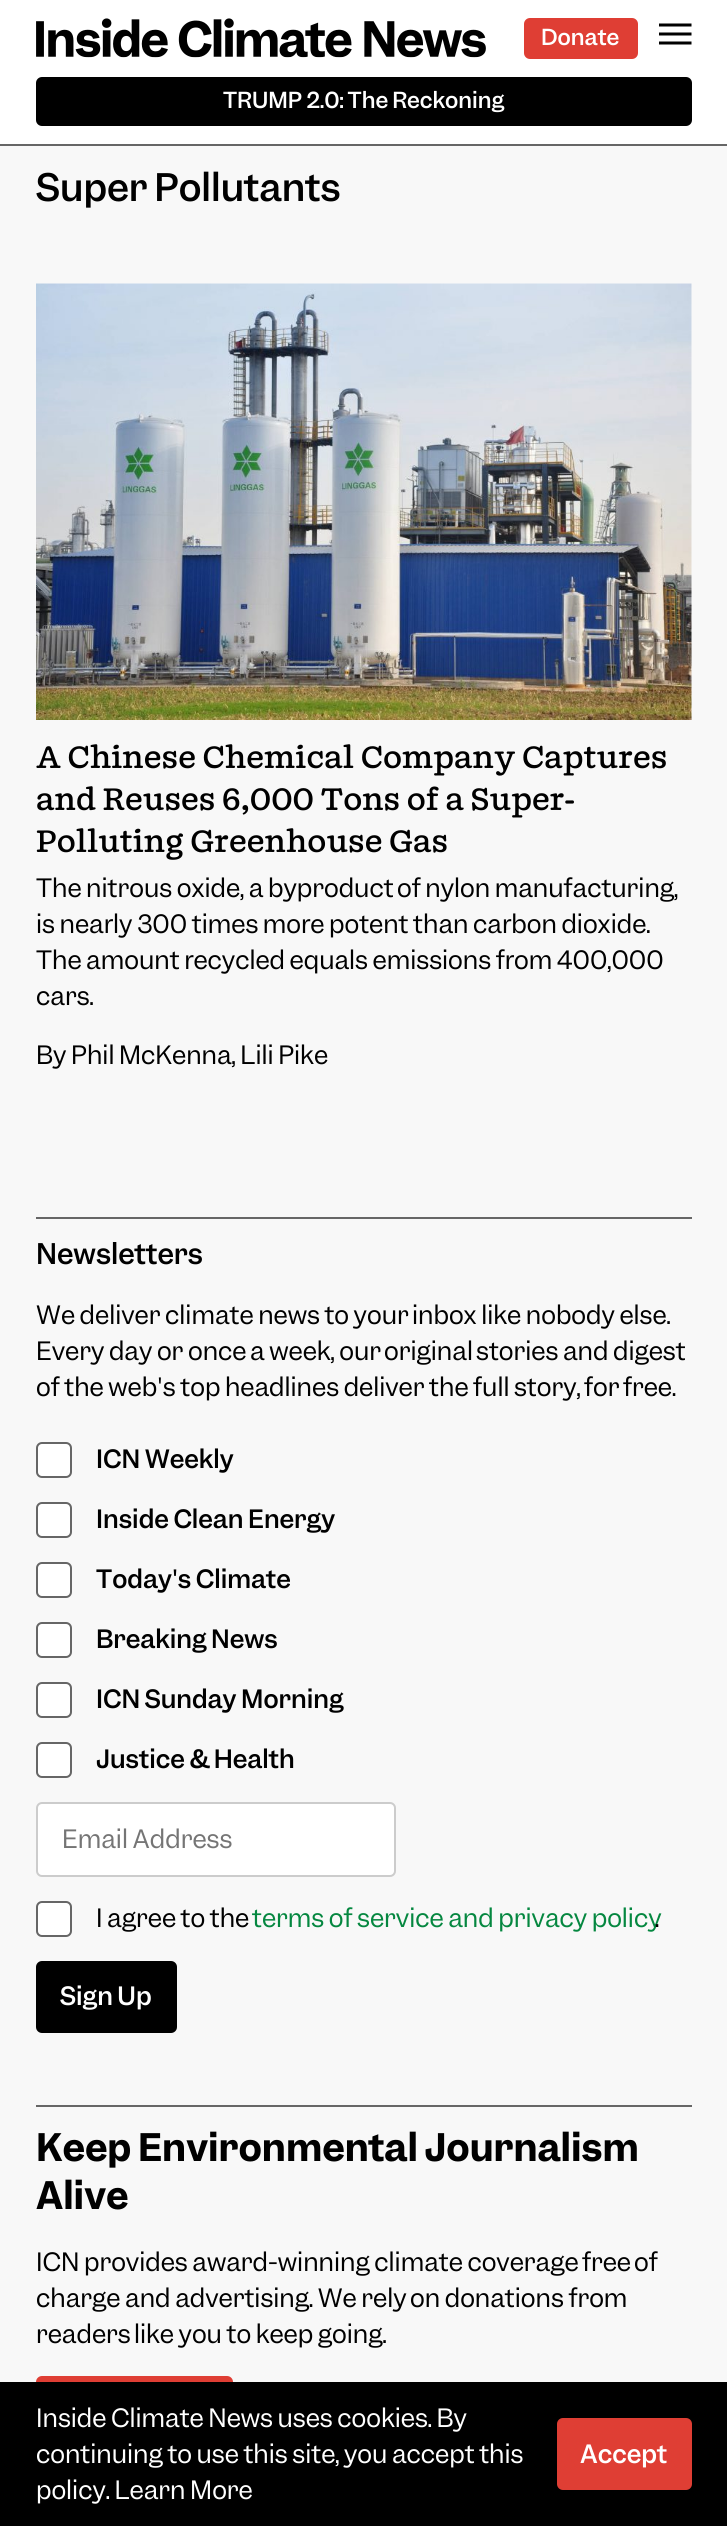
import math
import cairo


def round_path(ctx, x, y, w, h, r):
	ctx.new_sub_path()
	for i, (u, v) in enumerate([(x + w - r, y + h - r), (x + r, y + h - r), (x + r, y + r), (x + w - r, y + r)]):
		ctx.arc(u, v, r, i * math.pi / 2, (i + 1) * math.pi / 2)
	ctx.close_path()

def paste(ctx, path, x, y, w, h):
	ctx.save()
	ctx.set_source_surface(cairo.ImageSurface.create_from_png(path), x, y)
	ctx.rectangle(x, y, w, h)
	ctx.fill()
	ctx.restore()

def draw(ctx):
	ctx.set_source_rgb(0.969, 0.969, 0.969)
	ctx.paint()
	ctx.set_source_rgb(1, 1, 1)
	ctx.rectangle(0, 0, 727, 144)
	ctx.fill()
	ctx.set_source_rgb(0.4, 0.4, 0.4)
	ctx.rectangle(0, 144, 727, 2)
	ctx.fill()
	paste(ctx, 'media/1.png', 36, 18, 450, 40)
	ctx.set_source_rgb(0.875, 0.243, 0.204)
	round_path(ctx, 524, 18, 114, 41, 6)
	ctx.fill()
	ctx.select_font_face('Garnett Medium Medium')
	ctx.set_font_size(21)
	ctx.set_source_rgb(1, 1, 1)
	ctx.move_to(541, 45)
	ctx.show_text('Donate')
	ctx.save()
	ctx.rectangle(659, 18, 33, 33)
	ctx.clip()
	ctx.set_source_rgb(0, 0, 0)
	ctx.new_path()
	ctx.move_to(658.5, 23.5)
	ctx.line_to(691.5, 23.5)
	ctx.line_to(691.5, 26.5)
	ctx.line_to(658.5, 26.5)
	ctx.close_path()
	ctx.move_to(658.5, 32.5)
	ctx.line_to(691.5, 32.5)
	ctx.line_to(691.5, 35.5)
	ctx.line_to(658.5, 35.5)
	ctx.close_path()
	ctx.move_to(658.5, 41.5)
	ctx.line_to(691.5, 41.5)
	ctx.line_to(691.5, 44.5)
	ctx.line_to(658.5, 44.5)
	ctx.close_path()
	ctx.fill()
	ctx.restore()
	ctx.set_source_rgb(0, 0, 0)
	round_path(ctx, 36, 77, 656, 49, 6)
	ctx.fill()
	ctx.set_source_rgb(1, 1, 1)
	ctx.move_to(223, 108)
	ctx.show_text('TRUMP 2.0: The Reckoning')
	ctx.set_font_size(36)
	ctx.set_source_rgb(0, 0, 0)
	ctx.move_to(36, 201)
	ctx.show_text('Super Pollutants')
	paste(ctx, 'media/2.png', 36, 283, 656, 437)
	ctx.select_font_face('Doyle')
	ctx.set_font_size(30)
	for x, y, s in [
		(36, 768, 'A Chinese Chemical Company Captures'),
		(36, 810, 'and Reuses 6,000 Tons of a Super-'),
		(36, 852, 'Polluting Greenhouse Gas'),
	]:
		ctx.move_to(x, y)
		ctx.show_text(s)
	ctx.select_font_face('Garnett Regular')
	ctx.set_font_size(24)
	ctx.move_to(36, 897)
	ctx.show_text('The nitrous oxide, a byproduct')
	ctx.move_to(397, 897)
	ctx.show_text('of nylon manufacturing,')
	ctx.select_font_face('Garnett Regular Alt')
	ctx.move_to(36, 933)
	ctx.show_text('is nearly 300 times more potent than carbon dioxide.')
	ctx.move_to(36, 969)
	ctx.show_text('The amount recycled equals emissions from 400,000')
	ctx.select_font_face('Garnett Regular')
	ctx.move_to(36, 1005)
	ctx.show_text('cars.')
	ctx.move_to(36, 1064)
	ctx.show_text('By Phil McKenna, Lili Pike')
	ctx.set_source_rgb(0.4, 0.4, 0.4)
	ctx.rectangle(36, 1217, 656, 2)
	ctx.fill()
	ctx.select_font_face('Garnett Medium Medium')
	ctx.set_font_size(27)
	ctx.set_source_rgb(0, 0, 0)
	ctx.move_to(36, 1264)
	ctx.show_text('Newsletters')
	ctx.select_font_face('Garnett Regular')
	ctx.set_font_size(24)
	for x, y, s in [
		(36, 1324, 'We deliver climate news to your'),
		(412, 1324, 'inbox like nobody else.'),
		(36, 1360, 'Every day or once'),
		(250, 1360, 'a week, our'),
		(384, 1360, 'original'),
		(476, 1360, 'stories and digest'),
		(36, 1396, 'of the web\'s top headlines deliver the full story,'),
		(584, 1396, 'for'),
		(623, 1396, 'free.'),
	]:
		ctx.move_to(x, y)
		ctx.show_text(s)
	ctx.set_source_rgb(1, 1, 1)
	round_path(ctx, 37, 1443, 34, 34, 5)
	ctx.fill_preserve()
	ctx.set_source_rgb(0.4, 0.4, 0.4)
	ctx.stroke()
	ctx.select_font_face('Garnett Medium Medium')
	ctx.set_source_rgb(0, 0, 0)
	ctx.move_to(96, 1468)
	ctx.show_text('ICN Weekly')
	ctx.set_source_rgb(1, 1, 1)
	round_path(ctx, 37, 1503, 34, 34, 5)
	ctx.fill_preserve()
	ctx.set_source_rgb(0.4, 0.4, 0.4)
	ctx.stroke()
	ctx.set_source_rgb(0, 0, 0)
	ctx.move_to(96, 1528)
	ctx.show_text('Inside Clean Energy')
	ctx.set_source_rgb(1, 1, 1)
	round_path(ctx, 37, 1563, 34, 34, 5)
	ctx.fill_preserve()
	ctx.set_source_rgb(0.4, 0.4, 0.4)
	ctx.stroke()
	ctx.set_source_rgb(0, 0, 0)
	ctx.move_to(96, 1588)
	ctx.show_text('Today\'s Climate')
	ctx.set_source_rgb(1, 1, 1)
	round_path(ctx, 37, 1623, 34, 34, 5)
	ctx.fill_preserve()
	ctx.set_source_rgb(0.4, 0.4, 0.4)
	ctx.stroke()
	ctx.set_source_rgb(0, 0, 0)
	ctx.move_to(96, 1648)
	ctx.show_text('Breaking News')
	ctx.set_source_rgb(1, 1, 1)
	round_path(ctx, 37, 1683, 34, 34, 5)
	ctx.fill_preserve()
	ctx.set_source_rgb(0.4, 0.4, 0.4)
	ctx.stroke()
	ctx.set_source_rgb(0, 0, 0)
	ctx.move_to(96, 1708)
	ctx.show_text('ICN Sunday Morning')
	ctx.set_source_rgb(1, 1, 1)
	round_path(ctx, 37, 1743, 34, 34, 5)
	ctx.fill_preserve()
	ctx.set_source_rgb(0.4, 0.4, 0.4)
	ctx.stroke()
	ctx.set_source_rgb(0, 0, 0)
	ctx.move_to(96, 1768)
	ctx.show_text('Justice & Health')
	ctx.set_source_rgb(1, 1, 1)
	round_path(ctx, 37, 1803, 358, 73, 5)
	ctx.fill_preserve()
	ctx.set_source_rgb(0.8, 0.8, 0.8)
	ctx.stroke()
	ctx.select_font_face('Garnett Regular')
	ctx.set_source_rgb(0.459, 0.459, 0.459)
	ctx.move_to(62, 1848)
	ctx.show_text('Email Address')
	ctx.set_source_rgb(1, 1, 1)
	round_path(ctx, 37, 1902, 34, 34, 5)
	ctx.fill_preserve()
	ctx.set_source_rgb(0.4, 0.4, 0.4)
	ctx.stroke()
	ctx.set_source_rgb(0, 0, 0)
	ctx.move_to(96, 1927)
	ctx.show_text('I agree to the')
	ctx.set_source_rgb(0.02, 0.529, 0.251)
	ctx.move_to(252, 1927)
	ctx.show_text('terms of service and privacy policy')
	ctx.set_source_rgb(0, 0, 0)
	ctx.move_to(655, 1927)
	ctx.show_text('.')
	round_path(ctx, 36, 1961, 141, 72, 6)
	ctx.fill()
	ctx.select_font_face('Garnett Medium Medium')
	ctx.set_source_rgb(1, 1, 1)
	ctx.move_to(60, 2005)
	ctx.show_text('Sign Up')
	ctx.set_source_rgb(0.4, 0.4, 0.4)
	ctx.rectangle(36, 2105, 656, 2)
	ctx.fill()
	ctx.select_font_face('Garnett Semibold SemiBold')
	ctx.set_font_size(36)
	ctx.set_source_rgb(0, 0, 0)
	ctx.move_to(36, 2161)
	ctx.show_text('Keep Environmental Journalism')
	ctx.move_to(36, 2209)
	ctx.show_text('Alive')
	ctx.select_font_face('Garnett Regular')
	ctx.set_font_size(24)
	for x, y, s in [
		(36, 2271, 'ICN provides award-winning climate coverage'),
		(582, 2271, 'free'),
		(634, 2271, 'of'),
		(36, 2307, 'charge and advertising. We rely'),
		(410, 2307, 'on donations from'),
		(36, 2343, 'readers'),
		(134, 2343, 'like you to keep going.'),
	]:
		ctx.move_to(x, y)
		ctx.show_text(s)
	ctx.set_source_rgb(0.875, 0.243, 0.204)
	round_path(ctx, 36, 2376, 197, 72, 6)
	ctx.fill()
	ctx.set_source_rgb(0, 0, 0)
	ctx.rectangle(0, 2382, 727, 144)
	ctx.fill()
	ctx.set_source_rgb(1, 1, 1)
	for x, y, s in [
		(36, 2427, 'Inside Climate News uses cookies. By'),
		(36, 2463, 'continuing to use this site, you accept this'),
		(36, 2499, 'policy. Learn More'),
	]:
		ctx.move_to(x, y)
		ctx.show_text(s)
	ctx.set_source_rgb(0.875, 0.243, 0.204)
	round_path(ctx, 557, 2418, 135, 72, 6)
	ctx.fill()
	ctx.select_font_face('Garnett Medium Medium')
	ctx.set_source_rgb(1, 1, 1)
	ctx.move_to(580, 2463)
	ctx.show_text('Accept')


surface = cairo.ImageSurface(cairo.FORMAT_RGB24, 727, 2526)
ctx = cairo.Context(surface)
options = cairo.FontOptions()
options.set_hint_metrics(cairo.HINT_METRICS_OFF)
options.set_hint_style(cairo.HINT_STYLE_NONE)
ctx.set_font_options(options)
ctx.set_miter_limit(4)
draw(ctx)
surface.write_to_png('image.png')
